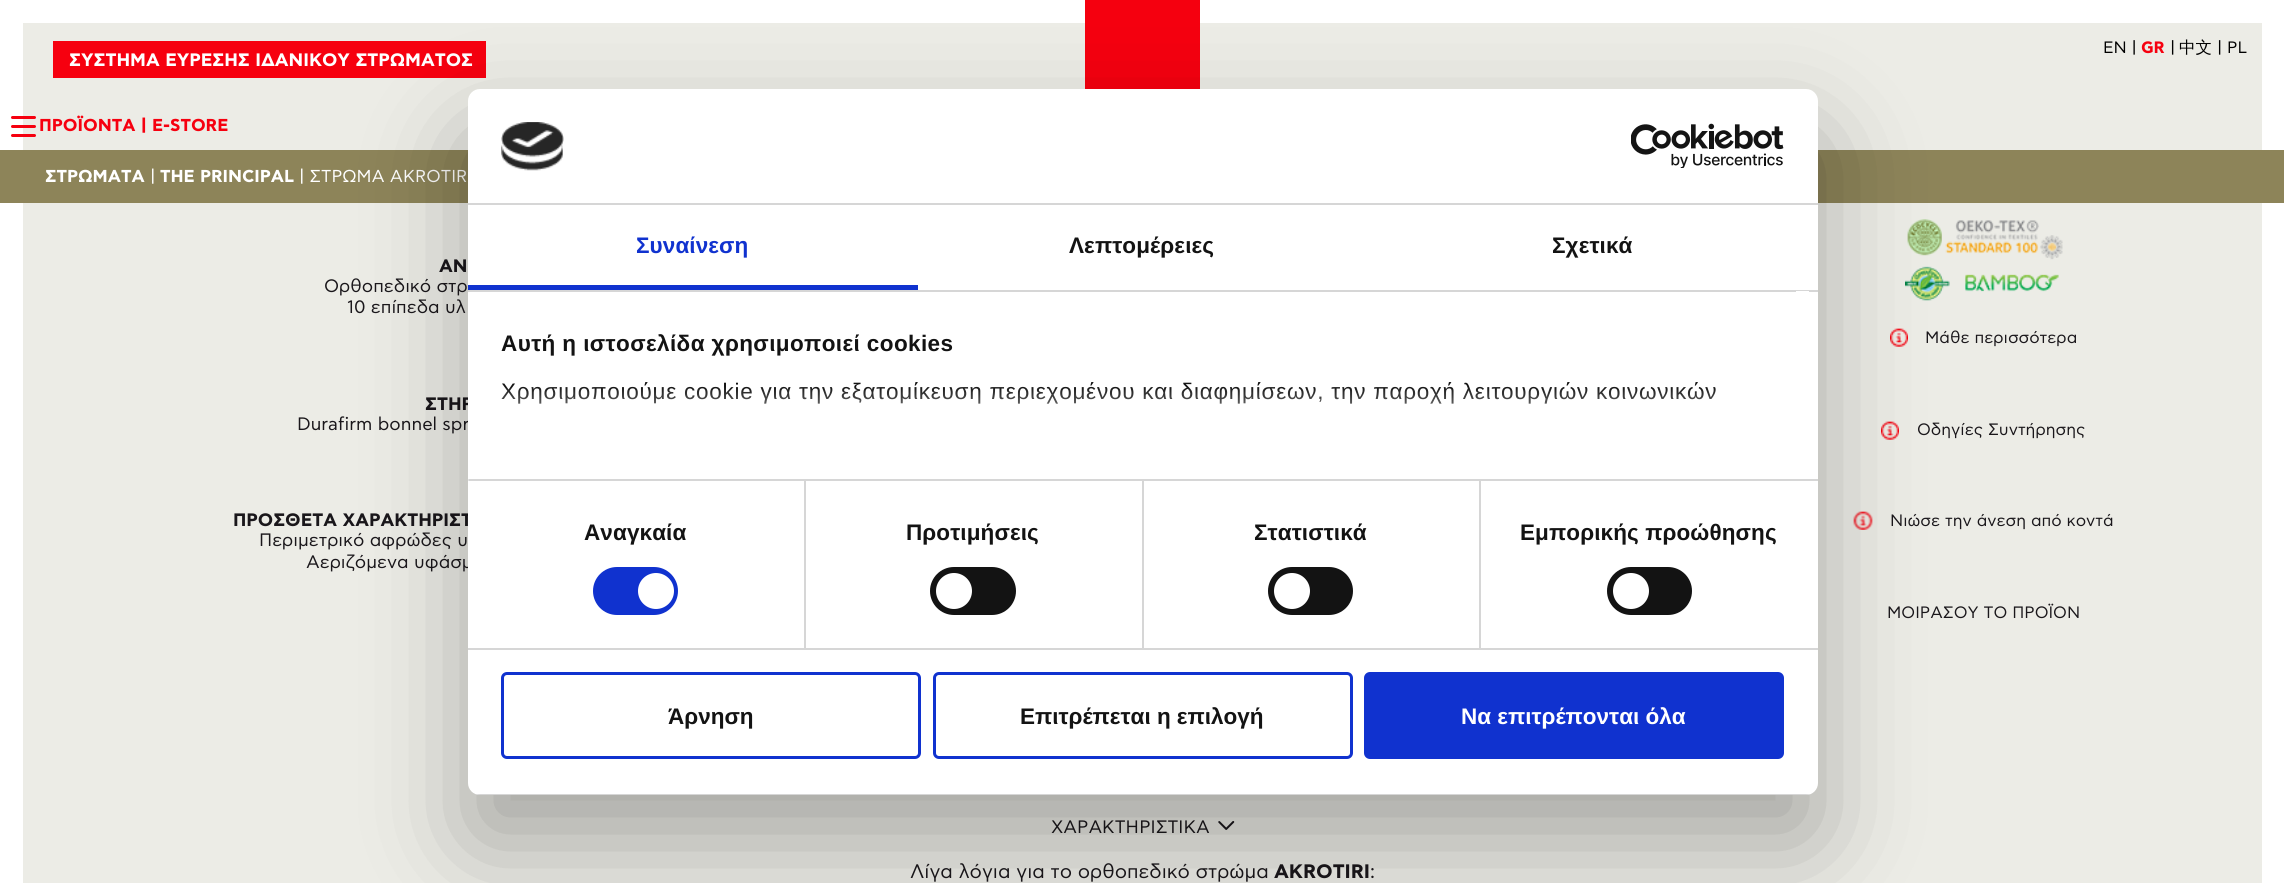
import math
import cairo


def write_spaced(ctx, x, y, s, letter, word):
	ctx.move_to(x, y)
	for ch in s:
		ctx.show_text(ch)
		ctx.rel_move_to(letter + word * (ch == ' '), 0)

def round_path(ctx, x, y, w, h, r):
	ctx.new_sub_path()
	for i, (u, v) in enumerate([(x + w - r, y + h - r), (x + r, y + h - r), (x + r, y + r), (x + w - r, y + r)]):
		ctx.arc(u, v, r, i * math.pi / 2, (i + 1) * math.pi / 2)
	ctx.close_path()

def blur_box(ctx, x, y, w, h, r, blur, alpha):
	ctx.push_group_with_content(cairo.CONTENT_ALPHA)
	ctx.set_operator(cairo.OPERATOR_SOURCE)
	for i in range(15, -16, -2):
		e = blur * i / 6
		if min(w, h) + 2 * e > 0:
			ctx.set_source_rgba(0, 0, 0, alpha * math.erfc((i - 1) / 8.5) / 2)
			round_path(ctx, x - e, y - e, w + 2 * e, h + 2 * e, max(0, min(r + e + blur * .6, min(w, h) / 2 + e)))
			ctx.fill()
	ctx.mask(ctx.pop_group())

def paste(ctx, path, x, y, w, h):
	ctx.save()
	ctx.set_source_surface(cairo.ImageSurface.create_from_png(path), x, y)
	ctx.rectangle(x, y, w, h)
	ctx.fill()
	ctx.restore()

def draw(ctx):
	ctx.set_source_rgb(1, 1, 1)
	ctx.paint()
	ctx.set_source_rgb(0.922, 0.925, 0.902)
	ctx.rectangle(23, 23, 2239, 127)
	ctx.fill()
	paste(ctx, 'media/1.png', 1085, 0, 115, 89)
	ctx.select_font_face('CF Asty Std')
	ctx.set_font_size(16.5)
	ctx.set_source_rgb(0, 0, 0)
	ctx.move_to(2103, 53)
	ctx.show_text('EN |')
	ctx.select_font_face('CF Asty Std', cairo.FONT_SLANT_NORMAL, cairo.FONT_WEIGHT_BOLD)
	ctx.set_source_rgb(0.961, 0, 0.059)
	ctx.move_to(2141, 53)
	ctx.show_text('GR')
	ctx.select_font_face('CF Asty Std')
	ctx.set_source_rgb(0, 0, 0)
	ctx.move_to(2170, 53)
	ctx.show_text('|')
	ctx.select_font_face('WenQuanYi Zen Hei Medium')
	ctx.move_to(2179, 53)
	ctx.show_text('中文')
	ctx.select_font_face('CF Asty Std')
	ctx.move_to(2217, 53)
	ctx.show_text('|')
	ctx.move_to(2227, 53)
	ctx.show_text('PL')
	ctx.set_source_rgb(0.961, 0, 0.059)
	ctx.rectangle(53, 41, 433, 37)
	ctx.fill()
	ctx.select_font_face('CF Asty Std', cairo.FONT_SLANT_NORMAL, cairo.FONT_WEIGHT_BOLD)
	ctx.set_font_size(18)
	ctx.set_source_rgb(1, 1, 1)
	ctx.move_to(69, 66)
	ctx.show_text('ΣΥΣΤΗΜΑ ΕΥΡΕΣΗΣ ΙΔΑΝΙΚΟΥ ΣΤΡΩΜΑΤΟΣ')
	ctx.set_source_rgb(0.961, 0, 0.059)
	round_path(ctx, 11, 116, 25, 3, 1.5)
	ctx.fill()
	round_path(ctx, 11, 125, 25, 3, 1.5)
	ctx.fill()
	round_path(ctx, 11, 134, 25, 3, 1.5)
	ctx.fill()
	ctx.set_font_size(17.25)
	ctx.move_to(39, 131)
	ctx.show_text('ΠΡΟΪΟΝΤΑ | Ε-STORE')
	ctx.set_source_rgb(0.553, 0.518, 0.349)
	ctx.rectangle(0, 150, 2284, 53)
	ctx.fill()
	ctx.set_source_rgb(1, 1, 1)
	ctx.move_to(45, 182)
	ctx.show_text('ΣΤΡΩΜΑΤΑ')
	ctx.select_font_face('CF Asty Std')
	ctx.move_to(150, 182)
	ctx.show_text('|')
	ctx.select_font_face('CF Asty Std', cairo.FONT_SLANT_NORMAL, cairo.FONT_WEIGHT_BOLD)
	ctx.move_to(160, 182)
	ctx.show_text('THE PRINCIPAL')
	ctx.select_font_face('CF Asty Std')
	ctx.move_to(299, 182)
	ctx.show_text('| ΣΤΡΩΜΑ AKROTIR')
	ctx.set_source_rgb(0.922, 0.925, 0.902)
	ctx.rectangle(23, 203, 2239, 680)
	ctx.fill()
	ctx.select_font_face('CF Asty Std', cairo.FONT_SLANT_NORMAL, cairo.FONT_WEIGHT_BOLD)
	ctx.set_font_size(18)
	ctx.set_source_rgb(0.102, 0.09, 0.106)
	ctx.move_to(439, 272)
	ctx.show_text('ΑΝ')
	ctx.select_font_face('CF Asty Std')
	ctx.move_to(324, 292)
	ctx.show_text('Ορθοπεδικό στρ')
	ctx.move_to(347, 313)
	ctx.show_text('10 επίπεδα υλ')
	ctx.select_font_face('CF Asty Std', cairo.FONT_SLANT_NORMAL, cairo.FONT_WEIGHT_BOLD)
	ctx.move_to(425, 410)
	ctx.show_text('ΣΤΗΡ')
	ctx.select_font_face('CF Asty Std')
	ctx.move_to(297, 430)
	ctx.show_text('Durafirm bonnel spr')
	ctx.select_font_face('CF Asty Std', cairo.FONT_SLANT_NORMAL, cairo.FONT_WEIGHT_BOLD)
	ctx.move_to(233, 526)
	ctx.show_text('ΠΡΟΣΘΕΤΑ ΧΑΡΑΚΤΗΡΙΣΤ')
	ctx.select_font_face('CF Asty Std')
	ctx.move_to(259, 546)
	ctx.show_text('Περιμετρικό αφρώδες υ')
	ctx.move_to(306, 568)
	ctx.show_text('Αεριζόμενα υφάσμ')
	paste(ctx, 'media/2.png', 1905, 219, 158, 82)
	paste(ctx, 'media/3.png', 1890, 328, 18, 19)
	ctx.set_font_size(16.5)
	ctx.move_to(1925, 343)
	ctx.show_text('Μάθε περισσότερα')
	paste(ctx, 'media/3.png', 1881, 421, 18, 19)
	ctx.move_to(1917, 435)
	ctx.show_text('Οδηγίες Συντήρησης')
	paste(ctx, 'media/4.png', 1853, 511, 20, 19)
	ctx.move_to(1890, 526)
	ctx.show_text('Νιώσε την άνεση από κοντά')
	ctx.move_to(1887, 618)
	ctx.show_text('ΜΟΙΡΑΣΟΥ ΤΟ ΠΡΟΪΟΝ')
	ctx.set_font_size(18)
	ctx.move_to(1051, 833)
	ctx.show_text('ΧΑΡΑΚΤΗΡΙΣΤΙΚΑ')
	paste(ctx, 'media/5.png', 1218, 821, 17, 9)
	ctx.set_font_size(19.5)
	ctx.move_to(910, 878)
	ctx.show_text('Λίγα λόγια για το ορθοπεδικό στρώμα')
	ctx.select_font_face('CF Asty Std', cairo.FONT_SLANT_NORMAL, cairo.FONT_WEIGHT_BOLD)
	ctx.move_to(1274, 878)
	ctx.show_text('AKROTIRI')
	ctx.select_font_face('CF Asty Std')
	ctx.move_to(1370, 878)
	ctx.show_text(':')
	ctx.set_source_rgb(0, 0, 0)
	blur_box(ctx, 468, 137, 1350, 706, 12, 51, 0.3)
	ctx.set_source_rgb(1, 1, 1)
	round_path(ctx, 468, 89, 1350, 706, 12)
	ctx.fill()
	ctx.set_source_rgb(0.839, 0.839, 0.839)
	ctx.rectangle(468, 203, 1350, 2)
	ctx.fill()
	paste(ctx, 'media/6.png', 501, 122, 63, 49)
	paste(ctx, 'media/7.png', 1631, 123, 153, 45)
	ctx.rectangle(468, 290, 1350, 2)
	ctx.fill()
	ctx.set_source_rgb(0.063, 0.196, 0.812)
	ctx.rectangle(468, 285, 450, 5)
	ctx.fill()
	ctx.select_font_face('Liberation Sans', cairo.FONT_SLANT_NORMAL, cairo.FONT_WEIGHT_BOLD)
	ctx.set_font_size(22.5)
	write_spaced(ctx, 636, 253, 'Συναίνεση', 0.1, 0)
	ctx.set_source_rgb(0.078, 0.078, 0.078)
	write_spaced(ctx, 1069, 253, 'Λεπτομέρειες', 0.1, 0)
	write_spaced(ctx, 1552, 253, 'Σχετικά', 0.1, 0)
	ctx.set_source_rgb(0.839, 0.839, 0.839)
	ctx.rectangle(804, 480, 2, 168)
	ctx.rectangle(1142, 480, 2, 168)
	ctx.rectangle(1479, 480, 2, 168)
	ctx.rectangle(468, 479, 1350, 2)
	ctx.fill()
	ctx.set_source_rgb(1, 1, 1)
	ctx.rectangle(1796, 291, 13, 1)
	ctx.fill()
	ctx.set_source_rgb(0.078, 0.078, 0.078)
	write_spaced(ctx, 501, 351, 'Αυτή η ιστοσελίδα χρησιμοποιεί cookies', 0.4, 0)
	ctx.select_font_face('Liberation Sans')
	write_spaced(ctx, 501, 399, 'Χρησιμοποιούμε cookie για την εξατομίκευση περιεχομένου και διαφημίσεων, την παροχή λειτουργιών κοινωνικών', 0.75, 0)
	gradient = cairo.LinearGradient(1127, 479, 1127, 386)
	gradient.add_color_stop_rgba(0, 1, 1, 1, 1)
	gradient.add_color_stop_rgba(0.5, 1, 1, 1, 0.8)
	gradient.add_color_stop_rgba(1, 1, 1, 1, 0)
	ctx.set_source(gradient)
	ctx.rectangle(501, 387, 1215, 17)
	ctx.fill()
	ctx.set_source_rgb(0.839, 0.839, 0.839)
	ctx.rectangle(468, 648, 1350, 2)
	ctx.fill()
	ctx.set_source_rgb(0.898, 0.898, 0.898)
	ctx.rectangle(468, 479, 1, 2)
	ctx.fill()
	ctx.select_font_face('Liberation Sans', cairo.FONT_SLANT_NORMAL, cairo.FONT_WEIGHT_BOLD)
	ctx.set_source_rgb(0.078, 0.078, 0.078)
	write_spaced(ctx, 584, 540, 'Αναγκαία', 0.1, 0)
	ctx.set_source_rgb(0.063, 0.196, 0.812)
	round_path(ctx, 593, 567, 85, 48, 24)
	ctx.fill()
	ctx.set_source_rgb(1, 1, 1)
	ctx.arc(656, 591, 18, 0, 2 * math.pi)
	ctx.fill()
	ctx.set_source_rgb(0.078, 0.078, 0.078)
	write_spaced(ctx, 906, 540, 'Προτιμήσεις', 0.1, 0)
	round_path(ctx, 930, 567, 86, 48, 24)
	ctx.fill()
	ctx.set_source_rgb(1, 1, 1)
	ctx.arc(954, 591, 18, 0, 2 * math.pi)
	ctx.fill()
	ctx.set_source_rgb(0.078, 0.078, 0.078)
	write_spaced(ctx, 1254, 540, 'Στατιστικά', 0.1, 0)
	round_path(ctx, 1268, 567, 85, 48, 24)
	ctx.fill()
	ctx.set_source_rgb(1, 1, 1)
	ctx.arc(1292, 591, 18, 0, 2 * math.pi)
	ctx.fill()
	ctx.set_source_rgb(0.078, 0.078, 0.078)
	write_spaced(ctx, 1520, 540, 'Εμπορικής προώθησης', 0.1, 0)
	round_path(ctx, 1607, 567, 85, 48, 24)
	ctx.fill()
	ctx.set_source_rgb(1, 1, 1)
	ctx.arc(1631, 591, 18, 0, 2 * math.pi)
	ctx.fill()
	ctx.save()
	round_path(ctx, 468, 89, 1350, 706, 12)
	ctx.clip()
	ctx.set_source_rgb(0.839, 0.839, 0.839)
	ctx.rectangle(468, 794, 1350, 1)
	ctx.fill()
	ctx.restore()
	round_path(ctx, 502.5, 673.5, 417, 84, 4.5)
	ctx.set_source_rgb(0.063, 0.196, 0.812)
	ctx.set_line_width(3)
	ctx.stroke()
	ctx.set_source_rgb(0.078, 0.078, 0.078)
	ctx.move_to(668, 724)
	ctx.show_text('Άρνηση')
	round_path(ctx, 934.5, 673.5, 417, 84, 4.5)
	ctx.set_source_rgb(0.063, 0.196, 0.812)
	ctx.stroke()
	ctx.set_source_rgb(0.078, 0.078, 0.078)
	ctx.move_to(1020, 724)
	ctx.show_text('Επιτρέπεται η επιλογή')
	ctx.set_source_rgb(0.063, 0.196, 0.812)
	round_path(ctx, 1365.5, 673.5, 417, 84, 4.5)
	ctx.fill_preserve()
	ctx.stroke()
	ctx.set_source_rgb(1, 1, 1)
	ctx.move_to(1461, 724)
	ctx.show_text('Να επιτρέπονται όλα')


surface = cairo.ImageSurface(cairo.FORMAT_RGB24, 2284, 883)
ctx = cairo.Context(surface)
options = cairo.FontOptions()
options.set_hint_metrics(cairo.HINT_METRICS_OFF)
options.set_hint_style(cairo.HINT_STYLE_NONE)
ctx.set_font_options(options)
ctx.set_miter_limit(4)
draw(ctx)
surface.write_to_png('image.png')
